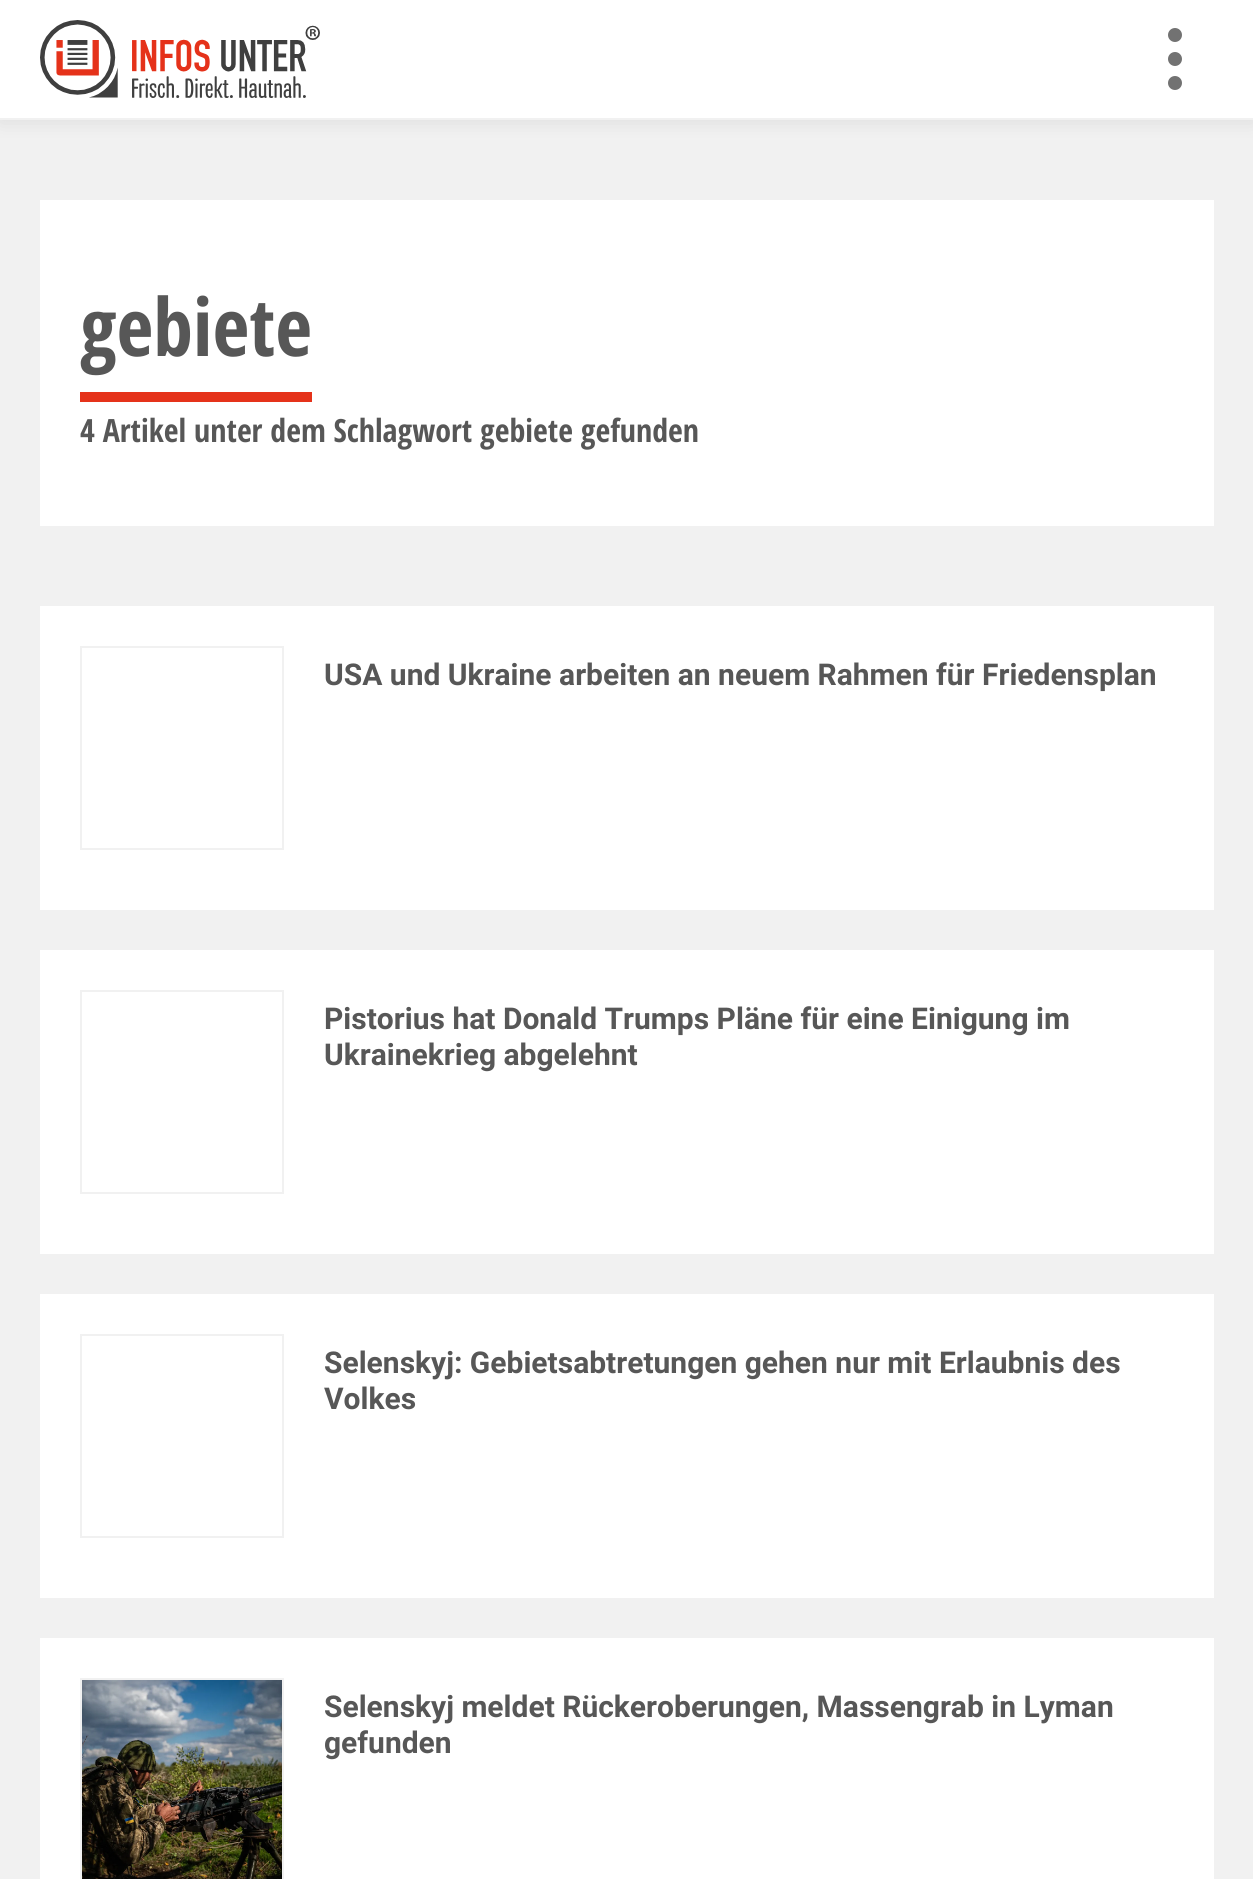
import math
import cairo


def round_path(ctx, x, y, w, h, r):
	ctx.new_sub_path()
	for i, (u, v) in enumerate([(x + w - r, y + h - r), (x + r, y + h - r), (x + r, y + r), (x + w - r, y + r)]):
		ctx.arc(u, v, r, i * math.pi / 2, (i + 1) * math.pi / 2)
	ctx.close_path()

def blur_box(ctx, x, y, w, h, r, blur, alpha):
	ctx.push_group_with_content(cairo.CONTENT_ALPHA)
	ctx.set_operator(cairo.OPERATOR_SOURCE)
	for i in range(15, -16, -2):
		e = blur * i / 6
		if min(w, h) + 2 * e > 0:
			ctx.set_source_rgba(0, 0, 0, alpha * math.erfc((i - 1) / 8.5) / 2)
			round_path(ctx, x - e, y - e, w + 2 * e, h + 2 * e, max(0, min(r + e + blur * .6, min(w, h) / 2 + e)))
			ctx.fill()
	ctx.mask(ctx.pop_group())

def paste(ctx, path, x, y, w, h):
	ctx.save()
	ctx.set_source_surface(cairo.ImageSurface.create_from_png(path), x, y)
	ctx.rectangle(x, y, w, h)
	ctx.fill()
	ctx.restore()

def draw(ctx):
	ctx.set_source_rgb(0.945, 0.945, 0.945)
	ctx.paint()
	ctx.set_source_rgb(0, 0, 0)
	blur_box(ctx, 0, 0, 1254, 120, 0, 10, 0.1)
	ctx.set_source_rgb(1, 1, 1)
	ctx.rectangle(0, 0, 1253, 118)
	ctx.fill()
	ctx.set_source_rgb(0.945, 0.945, 0.945)
	ctx.rectangle(0, 118, 1253, 2)
	ctx.fill()
	paste(ctx, 'media/1.png', 40, 20, 280, 78)
	ctx.set_source_rgb(0.447, 0.447, 0.447)
	ctx.arc(1175, 35, 7, 0, 2 * math.pi)
	ctx.fill()
	ctx.arc(1175, 59, 7, 0, 2 * math.pi)
	ctx.fill()
	ctx.arc(1175, 83, 7, 0, 2 * math.pi)
	ctx.fill()
	ctx.set_source_rgb(1, 1, 1)
	ctx.rectangle(40, 200, 1174, 326)
	ctx.fill()
	ctx.set_source_rgb(0.898, 0.196, 0.102)
	ctx.rectangle(80, 392, 232, 10)
	ctx.fill()
	ctx.select_font_face('Open Sans Condensed', cairo.FONT_SLANT_NORMAL, cairo.FONT_WEIGHT_BOLD)
	ctx.set_font_size(80)
	ctx.set_source_rgb(0.341, 0.341, 0.341)
	ctx.move_to(80, 356)
	ctx.show_text('gebiete')
	ctx.set_font_size(32)
	ctx.move_to(80, 442)
	ctx.show_text('4 Artikel unter dem Schlagwort gebiete gefunden')
	ctx.set_source_rgb(1, 1, 1)
	ctx.rectangle(40, 606, 1174, 304)
	ctx.fill()
	ctx.rectangle(81, 647, 202, 202)
	ctx.set_source_rgb(0.945, 0.945, 0.945)
	ctx.stroke()
	ctx.select_font_face('Roboto', cairo.FONT_SLANT_NORMAL, cairo.FONT_WEIGHT_BOLD)
	ctx.set_font_size(30)
	ctx.set_source_rgb(0.341, 0.341, 0.341)
	ctx.move_to(324, 685)
	ctx.show_text('USA und Ukraine arbeiten an neuem Rahmen für Friedensplan')
	ctx.set_source_rgb(1, 1, 1)
	ctx.rectangle(40, 950, 1174, 304)
	ctx.fill()
	ctx.rectangle(81, 991, 202, 202)
	ctx.set_source_rgb(0.945, 0.945, 0.945)
	ctx.stroke()
	ctx.set_source_rgb(0.341, 0.341, 0.341)
	ctx.move_to(324, 1029)
	ctx.show_text('Pistorius hat Donald Trumps Pläne für eine Einigung im')
	ctx.move_to(324, 1065)
	ctx.show_text('Ukrainekrieg abgelehnt')
	ctx.set_source_rgb(1, 1, 1)
	ctx.rectangle(40, 1294, 1174, 304)
	ctx.fill()
	ctx.rectangle(81, 1335, 202, 202)
	ctx.set_source_rgb(0.945, 0.945, 0.945)
	ctx.stroke()
	ctx.set_source_rgb(0.341, 0.341, 0.341)
	ctx.move_to(324, 1373)
	ctx.show_text('Selenskyj: Gebietsabtretungen gehen nur mit Erlaubnis des')
	ctx.move_to(324, 1409)
	ctx.show_text('Volkes')
	ctx.set_source_rgb(1, 1, 1)
	ctx.rectangle(40, 1638, 1174, 241)
	ctx.fill()
	ctx.rectangle(81, 1679, 202, 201)
	ctx.set_source_rgb(0.945, 0.945, 0.945)
	ctx.stroke()
	paste(ctx, 'media/2.png', 82, 1680, 200, 199)
	ctx.set_source_rgb(0.341, 0.341, 0.341)
	ctx.move_to(324, 1717)
	ctx.show_text('Selenskyj meldet Rückeroberungen, Massengrab in Lyman')
	ctx.move_to(324, 1753)
	ctx.show_text('gefunden')


surface = cairo.ImageSurface(cairo.FORMAT_RGB24, 1253, 1879)
ctx = cairo.Context(surface)
options = cairo.FontOptions()
options.set_hint_metrics(cairo.HINT_METRICS_OFF)
options.set_hint_style(cairo.HINT_STYLE_NONE)
ctx.set_font_options(options)
ctx.set_miter_limit(4)
draw(ctx)
surface.write_to_png('image.png')
